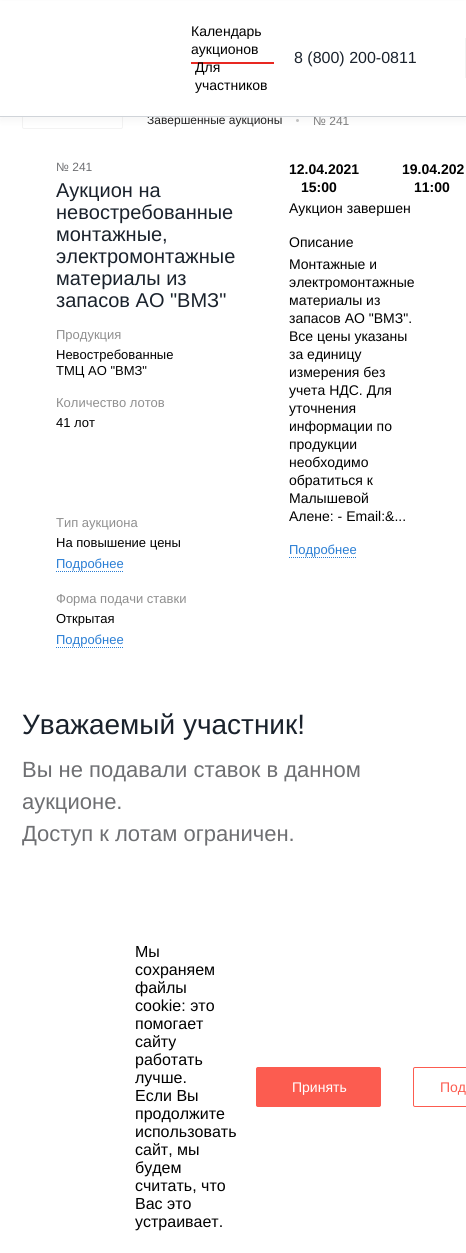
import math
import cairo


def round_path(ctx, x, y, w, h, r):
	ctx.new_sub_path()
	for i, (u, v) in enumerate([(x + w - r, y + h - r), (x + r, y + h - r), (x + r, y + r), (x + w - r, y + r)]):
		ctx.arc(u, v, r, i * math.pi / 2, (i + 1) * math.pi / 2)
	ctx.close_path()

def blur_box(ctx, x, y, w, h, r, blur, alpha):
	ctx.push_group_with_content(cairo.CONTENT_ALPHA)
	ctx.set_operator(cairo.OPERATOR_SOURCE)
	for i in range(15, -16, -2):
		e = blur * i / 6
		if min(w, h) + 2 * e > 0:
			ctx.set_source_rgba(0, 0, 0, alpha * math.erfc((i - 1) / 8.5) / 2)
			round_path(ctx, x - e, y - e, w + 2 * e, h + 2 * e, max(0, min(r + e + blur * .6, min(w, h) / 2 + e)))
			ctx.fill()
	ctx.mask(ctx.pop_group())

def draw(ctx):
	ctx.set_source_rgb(1, 1, 1)
	ctx.paint()
	round_path(ctx, 22.5, 97.5, 100, 31, 1.5)
	ctx.set_source_rgb(0.953, 0.953, 0.953)
	ctx.set_line_width(1)
	ctx.stroke()
	ctx.set_source_rgb(0.769, 0.769, 0.769)
	ctx.arc(297.5, 120.5, 1.5, 0, 2 * math.pi)
	ctx.fill()
	ctx.set_source_rgb(0, 0, 0)
	blur_box(ctx, 0, 4, 466, 117, 0, 4, 0.04)
	ctx.select_font_face('Liberation Sans')
	ctx.set_font_size(12)
	ctx.set_source_rgb(0.125, 0.125, 0.125)
	ctx.move_to(147, 124)
	ctx.show_text('Завершенные аукционы')
	ctx.set_source_rgb(1, 1, 1)
	ctx.rectangle(0, 1, 466, 115)
	ctx.fill()
	ctx.set_source_rgb(0.49, 0.49, 0.49)
	ctx.move_to(313, 125)
	ctx.show_text('№ 241')
	ctx.set_source_rgb(0.816, 0.831, 0.851)
	ctx.rectangle(0, 116, 466, 1)
	ctx.fill()
	ctx.set_font_size(14)
	ctx.set_source_rgb(0, 0, 0)
	ctx.move_to(191, 36)
	ctx.show_text('Календарь')
	ctx.move_to(191, 54)
	ctx.show_text('аукционов')
	ctx.set_source_rgb(0.91, 0.157, 0.129)
	ctx.rectangle(191, 62, 83, 2)
	ctx.fill()
	ctx.set_source_rgb(0, 0, 0)
	ctx.move_to(195, 72)
	ctx.show_text('Для')
	ctx.move_to(195, 90)
	ctx.show_text('участников')
	ctx.set_font_size(16)
	ctx.set_source_rgb(0.102, 0.133, 0.173)
	ctx.move_to(294, 63)
	ctx.show_text('8 (800) 200-0811')
	ctx.set_source_rgb(0.953, 0.953, 0.953)
	ctx.rectangle(465, 38, 1, 40)
	ctx.fill()
	ctx.set_font_size(12)
	ctx.set_source_rgb(0.431, 0.435, 0.447)
	ctx.move_to(56, 171)
	ctx.show_text('№ 241')
	ctx.set_font_size(20)
	ctx.set_source_rgb(0.102, 0.133, 0.173)
	for x, y, s in [
		(56, 197, 'Аукцион на'),
		(56, 219, 'невостребованные'),
		(56, 241, 'монтажные,'),
		(56, 263, 'электромонтажные'),
		(56, 285, 'материалы из'),
		(56, 307, 'запасов АО "ВМЗ"'),
	]:
		ctx.move_to(x, y)
		ctx.show_text(s)
	ctx.set_font_size(13)
	ctx.set_source_rgb(0.561, 0.561, 0.561)
	ctx.move_to(56, 339)
	ctx.show_text('Продукция')
	ctx.set_source_rgb(0, 0, 0)
	ctx.move_to(56, 359)
	ctx.show_text('Невостребованные')
	ctx.move_to(56, 375)
	ctx.show_text('ТМЦ АО "ВМЗ"')
	ctx.set_source_rgb(0.561, 0.561, 0.561)
	ctx.move_to(56, 407)
	ctx.show_text('Количество лотов')
	ctx.set_source_rgb(0, 0, 0)
	ctx.move_to(56, 427)
	ctx.show_text('41 лот')
	ctx.set_source_rgb(0.561, 0.561, 0.561)
	ctx.move_to(56, 527)
	ctx.show_text('Тип аукциона')
	ctx.set_source_rgb(0, 0, 0)
	ctx.move_to(56, 547)
	ctx.show_text('На повышение цены')
	ctx.set_source_rgb(0.157, 0.49, 0.831)
	ctx.move_to(56, 568)
	ctx.show_text('Подробнее')
	ctx.new_path()
	ctx.move_to(56, 571.5)
	ctx.line_to(124, 571.5)
	ctx.set_dash([1, 1])
	ctx.stroke()
	ctx.set_source_rgb(0.561, 0.561, 0.561)
	ctx.move_to(56, 603)
	ctx.show_text('Форма подачи ставки')
	ctx.set_source_rgb(0, 0, 0)
	ctx.move_to(56, 623)
	ctx.show_text('Открытая')
	ctx.set_source_rgb(0.157, 0.49, 0.831)
	ctx.move_to(56, 644)
	ctx.show_text('Подробнее')
	ctx.new_path()
	ctx.move_to(56, 647.5)
	ctx.line_to(124, 647.5)
	ctx.stroke()
	ctx.select_font_face('Liberation Sans', cairo.FONT_SLANT_NORMAL, cairo.FONT_WEIGHT_BOLD)
	ctx.set_font_size(14)
	ctx.set_source_rgb(0, 0, 0)
	for x, y, s in [
		(289, 174, '12.04.2021'),
		(301, 192, '15:00'),
		(402, 174, '19.04.202'),
		(414, 192, '11:00'),
	]:
		ctx.move_to(x, y)
		ctx.show_text(s)
	ctx.select_font_face('Liberation Sans')
	for x, y, s in [
		(289, 213, 'Аукцион завершен'),
		(289, 247, 'Описание'),
		(289, 269, 'Монтажные и'),
		(289, 287, 'электромонтажные'),
		(289, 305, 'материалы из'),
		(289, 323, 'запасов АО "ВМЗ".'),
		(289, 341, 'Все цены указаны'),
		(289, 359, 'за единицу'),
		(289, 377, 'измерения без'),
		(289, 395, 'учета НДС. Для'),
		(289, 413, 'уточнения'),
		(289, 431, 'информации по'),
		(289, 449, 'продукции'),
		(289, 467, 'необходимо'),
		(289, 485, 'обратиться к'),
		(289, 503, 'Малышевой'),
		(289, 521, 'Алене: - Email:&...'),
	]:
		ctx.move_to(x, y)
		ctx.show_text(s)
	ctx.set_font_size(13)
	ctx.set_source_rgb(0.157, 0.49, 0.831)
	ctx.move_to(289, 554)
	ctx.show_text('Подробнее')
	ctx.new_path()
	ctx.move_to(289, 557.5)
	ctx.line_to(357, 557.5)
	ctx.stroke()
	ctx.set_font_size(28)
	ctx.set_source_rgb(0.102, 0.133, 0.173)
	ctx.move_to(22, 734)
	ctx.show_text('Уважаемый участник!')
	ctx.set_font_size(22)
	ctx.set_source_rgb(0.431, 0.435, 0.447)
	for x, y, s in [
		(22, 777, 'Вы не подавали ставок в данном'),
		(22, 809, 'аукционе.'),
		(22, 841, 'Доступ к лотам ограничен.'),
	]:
		ctx.move_to(x, y)
		ctx.show_text(s)
	ctx.set_font_size(16)
	ctx.set_source_rgb(0, 0, 0)
	for x, y, s in [
		(135, 957, 'Мы'),
		(135, 975, 'сохраняем'),
		(135, 993, 'файлы'),
		(135, 1011, 'cookie: это'),
		(135, 1029, 'помогает'),
		(135, 1047, 'сайту'),
		(135, 1065, 'работать'),
		(135, 1083, 'лучше.'),
		(135, 1101, 'Если Вы'),
		(135, 1119, 'продолжите'),
		(135, 1137, 'использовать'),
		(135, 1155, 'сайт, мы'),
		(135, 1173, 'будем'),
		(135, 1191, 'считать, что'),
		(135, 1209, 'Вас это'),
		(135, 1227, 'устраивает.'),
	]:
		ctx.move_to(x, y)
		ctx.show_text(s)
	ctx.set_source_rgb(0.988, 0.361, 0.314)
	round_path(ctx, 256.5, 1067.5, 124, 39, 1.5)
	ctx.fill_preserve()
	ctx.set_dash([])
	ctx.stroke()
	ctx.set_font_size(14)
	ctx.set_source_rgb(1, 1, 1)
	ctx.move_to(292, 1092)
	ctx.show_text('Принять')
	round_path(ctx, 413.5, 1067.5, 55, 39, 1.5)
	ctx.set_source_rgb(0.988, 0.361, 0.314)
	ctx.stroke()
	ctx.move_to(440, 1092)
	ctx.show_text('Под')


surface = cairo.ImageSurface(cairo.FORMAT_RGB24, 466, 1253)
ctx = cairo.Context(surface)
options = cairo.FontOptions()
options.set_hint_metrics(cairo.HINT_METRICS_OFF)
options.set_hint_style(cairo.HINT_STYLE_NONE)
ctx.set_font_options(options)
ctx.set_miter_limit(4)
draw(ctx)
surface.write_to_png('image.png')
